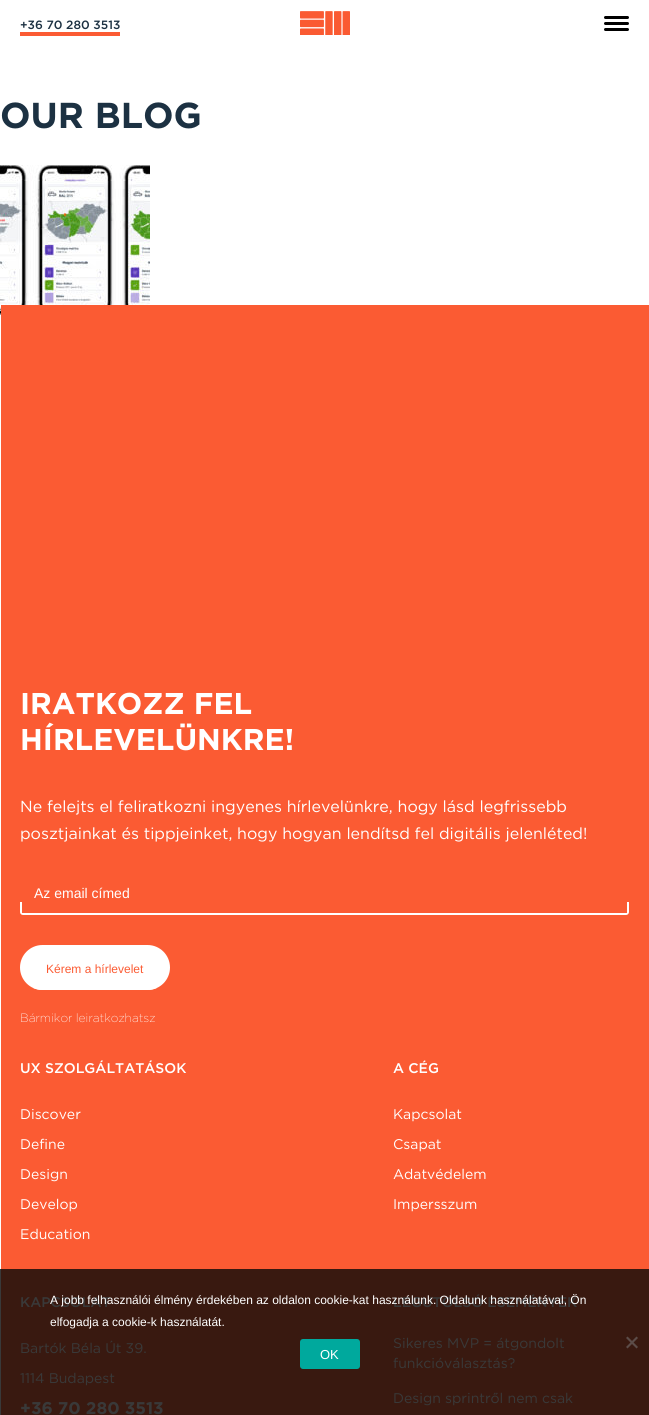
import math
import cairo


def round_path(ctx, x, y, w, h, r):
	ctx.new_sub_path()
	for i, (u, v) in enumerate([(x + w - r, y + h - r), (x + r, y + h - r), (x + r, y + r), (x + w - r, y + r)]):
		ctx.arc(u, v, r, i * math.pi / 2, (i + 1) * math.pi / 2)
	ctx.close_path()

def paste(ctx, path, x, y, w, h):
	ctx.save()
	ctx.set_source_surface(cairo.ImageSurface.create_from_png(path), x, y)
	ctx.rectangle(x, y, w, h)
	ctx.fill()
	ctx.restore()

def draw(ctx):
	ctx.set_source_rgb(1, 1, 1)
	ctx.paint()
	ctx.set_source_rgb(0.224, 0.224, 0.224)
	ctx.rectangle(0, 1269, 1, 146)
	ctx.fill()
	ctx.select_font_face('Gotham Medium')
	ctx.set_font_size(12)
	ctx.set_source_rgb(0.11, 0.192, 0.259)
	ctx.move_to(20, 29)
	ctx.show_text('+36 70 280 3513')
	ctx.set_source_rgb(0.984, 0.357, 0.2)
	ctx.rectangle(20, 32, 100, 4)
	ctx.fill()
	paste(ctx, 'media/1.png', 300, 11, 50, 24)
	ctx.set_source_rgb(0, 0, 0)
	round_path(ctx, 604, 16, 25, 3, 1.5)
	ctx.fill()
	round_path(ctx, 604, 22, 25, 3, 1.5)
	ctx.fill()
	round_path(ctx, 604, 28, 25, 3, 1.5)
	ctx.fill()
	ctx.select_font_face('Gotham', cairo.FONT_SLANT_NORMAL, cairo.FONT_WEIGHT_BOLD)
	ctx.set_font_size(36)
	ctx.set_source_rgb(0.11, 0.192, 0.259)
	ctx.move_to(0, 128)
	ctx.show_text('OUR BLOG')
	paste(ctx, 'media/2.png', 0, 165, 150, 150)
	ctx.set_source_rgb(0.984, 0.357, 0.2)
	ctx.rectangle(1, 305, 648, 964)
	ctx.fill()
	ctx.set_source_rgb(0.224, 0.098, 0.063)
	ctx.rectangle(1, 1269, 648, 146)
	ctx.fill()
	ctx.set_font_size(30)
	ctx.set_source_rgb(1, 1, 1)
	ctx.move_to(20, 714)
	ctx.show_text('IRATKOZZ FEL')
	ctx.move_to(20, 750)
	ctx.show_text('HÍRLEVELÜNKRE!')
	ctx.select_font_face('Gotham')
	ctx.set_font_size(16)
	ctx.move_to(20, 812)
	ctx.show_text('Ne felejts el feliratkozni ingyenes hírlevelünkre, hogy lásd legfrissebb')
	ctx.move_to(20, 839)
	ctx.show_text('posztjainkat és tippjeinket, hogy hogyan lendítsd fel digitális jelenléted!')
	ctx.save()
	round_path(ctx, 20, 851, 609, 64, 3)
	ctx.clip()
	ctx.rectangle(627, 902, 2, 13)
	ctx.rectangle(20, 913, 609, 2)
	ctx.rectangle(20, 902, 2, 13)
	ctx.fill()
	ctx.restore()
	ctx.select_font_face('Liberation Sans')
	ctx.set_font_size(14)
	ctx.move_to(34, 898)
	ctx.show_text('Az email címed')
	round_path(ctx, 20, 945, 150, 45, 22.5)
	ctx.fill()
	ctx.save()
	round_path(ctx, 20, 945, 150, 45, 22.5)
	ctx.clip()
	ctx.rectangle(33, 988, 124, 2)
	ctx.fill()
	ctx.restore()
	ctx.set_font_size(12)
	ctx.set_source_rgb(0.984, 0.357, 0.2)
	ctx.move_to(46, 973)
	ctx.show_text('Kérem a hírlevelet')
	ctx.select_font_face('Gotham ExtraLight')
	ctx.set_source_rgb(1, 1, 1)
	ctx.move_to(20, 1022)
	ctx.show_text('Bármikor leiratkozhatsz')
	ctx.select_font_face('Gotham Medium')
	ctx.set_font_size(14)
	ctx.move_to(20, 1073)
	ctx.show_text('UX SZOLGÁLTATÁSOK')
	ctx.select_font_face('Gotham')
	for x, y, s in [
		(20, 1119, 'Discover'),
		(20, 1149, 'Define'),
		(20, 1179, 'Design'),
		(20, 1209, 'Develop'),
		(20, 1239, 'Education'),
	]:
		ctx.move_to(x, y)
		ctx.show_text(s)
	ctx.select_font_face('Gotham Medium')
	ctx.move_to(393, 1073)
	ctx.show_text('A CÉG')
	ctx.select_font_face('Gotham')
	for x, y, s in [
		(393, 1119, 'Kapcsolat'),
		(393, 1149, 'Csapat'),
		(393, 1179, 'Adatvédelem'),
		(393, 1209, 'Impersszum'),
	]:
		ctx.move_to(x, y)
		ctx.show_text(s)
	ctx.select_font_face('Gotham Medium')
	ctx.set_source_rgb(0.224, 0.224, 0.224)
	ctx.move_to(20, 1307)
	ctx.show_text('KAPCSOLAT')
	ctx.select_font_face('Gotham')
	ctx.move_to(20, 1353)
	ctx.show_text('Bartók Béla Út 39.')
	ctx.move_to(20, 1383)
	ctx.show_text('1114 Budapest')
	ctx.select_font_face('Gotham', cairo.FONT_SLANT_NORMAL, cairo.FONT_WEIGHT_BOLD)
	ctx.set_font_size(17)
	ctx.move_to(20, 1414)
	ctx.show_text('+36 70 280 3513')
	ctx.select_font_face('Gotham Medium')
	ctx.set_font_size(14)
	ctx.move_to(393, 1307)
	ctx.show_text('LEGUTOLSÓ ESEMÉNYEK')
	ctx.select_font_face('Gotham')
	for x, y, s in [
		(393, 1348, 'Sikeres MVP = átgondolt'),
		(393, 1368, 'funkcióválasztás?'),
		(393, 1403, 'Design sprintről nem csak'),
	]:
		ctx.move_to(x, y)
		ctx.show_text(s)
	ctx.select_font_face('Liberation Sans')
	ctx.set_font_size(12)
	ctx.set_source_rgb(1, 1, 1)
	ctx.move_to(50, 1304)
	ctx.show_text('A jobb felhasználói élmény érdekében az oldalon cookie-kat használunk. Oldalunk használatával, Ön')
	ctx.move_to(50, 1326)
	ctx.show_text('elfogadja a cookie-k használatát.')
	ctx.set_source_rgb(0.361, 0.298, 0.282)
	ctx.new_path()
	ctx.move_to(636.5, 1336.5)
	ctx.line_to(638, 1338)
	ctx.line_to(627.5, 1348.5)
	ctx.line_to(626, 1347)
	ctx.close_path()
	ctx.fill()
	ctx.new_path()
	ctx.move_to(626, 1338)
	ctx.line_to(627.5, 1336.5)
	ctx.line_to(638, 1347)
	ctx.line_to(636.5, 1348.5)
	ctx.close_path()
	ctx.fill()
	ctx.set_source_rgb(0, 0.663, 0.616)
	round_path(ctx, 300, 1339, 60, 30, 3)
	ctx.fill()
	ctx.set_font_size(13)
	ctx.set_source_rgb(1, 1, 1)
	ctx.move_to(320, 1359)
	ctx.show_text('OK')


surface = cairo.ImageSurface(cairo.FORMAT_RGB24, 649, 1415)
ctx = cairo.Context(surface)
options = cairo.FontOptions()
options.set_hint_metrics(cairo.HINT_METRICS_OFF)
options.set_hint_style(cairo.HINT_STYLE_NONE)
ctx.set_font_options(options)
ctx.set_miter_limit(4)
draw(ctx)
surface.write_to_png('image.png')
